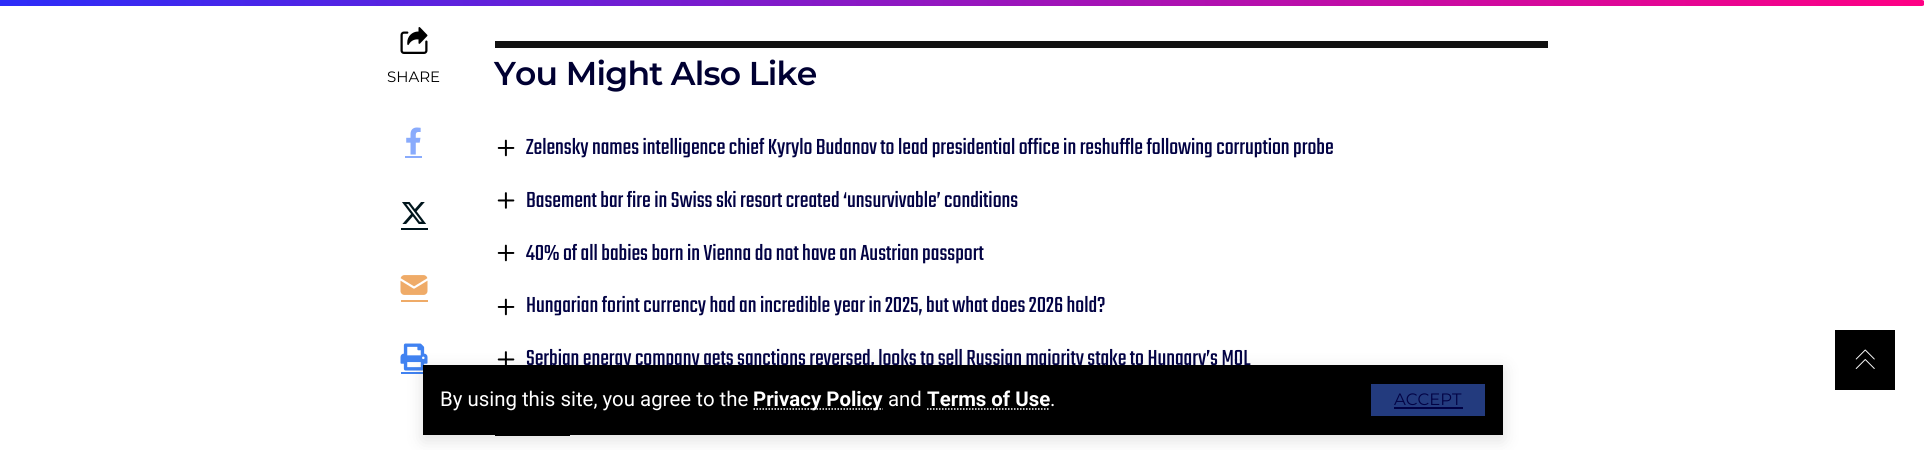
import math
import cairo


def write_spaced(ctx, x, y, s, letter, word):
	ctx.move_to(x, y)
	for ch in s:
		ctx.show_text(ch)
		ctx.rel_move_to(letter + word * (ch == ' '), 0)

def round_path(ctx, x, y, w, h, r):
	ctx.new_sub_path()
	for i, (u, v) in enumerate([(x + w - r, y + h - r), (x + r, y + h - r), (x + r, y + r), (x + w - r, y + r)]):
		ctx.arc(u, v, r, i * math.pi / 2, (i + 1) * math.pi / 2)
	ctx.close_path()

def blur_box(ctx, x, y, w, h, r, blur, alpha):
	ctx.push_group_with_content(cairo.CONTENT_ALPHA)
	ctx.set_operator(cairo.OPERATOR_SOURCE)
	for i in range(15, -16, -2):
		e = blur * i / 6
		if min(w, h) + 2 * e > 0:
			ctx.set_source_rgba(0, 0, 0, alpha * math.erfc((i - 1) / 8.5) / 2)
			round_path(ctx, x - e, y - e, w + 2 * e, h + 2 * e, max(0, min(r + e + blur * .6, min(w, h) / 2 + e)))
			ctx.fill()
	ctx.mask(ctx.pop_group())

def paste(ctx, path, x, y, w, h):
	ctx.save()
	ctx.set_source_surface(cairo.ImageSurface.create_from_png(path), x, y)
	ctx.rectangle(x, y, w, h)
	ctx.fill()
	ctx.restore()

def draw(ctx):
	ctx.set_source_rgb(1, 1, 1)
	ctx.paint()
	paste(ctx, 'media/1.png', 400, 27, 28, 27)
	ctx.select_font_face('Montserrat')
	ctx.set_font_size(15)
	ctx.set_source_rgb(0, 0, 0)
	ctx.move_to(387, 82)
	ctx.show_text('SHARE')
	paste(ctx, 'media/2.png', 406, 127, 15, 28)
	ctx.set_source_rgb(0.537, 0.671, 0.988)
	ctx.rectangle(405, 156, 17, 2)
	ctx.fill()
	paste(ctx, 'media/3.png', 402, 202, 25, 22)
	ctx.set_source_rgb(0, 0.082, 0.11)
	ctx.rectangle(401, 228, 27, 2)
	ctx.fill()
	paste(ctx, 'media/4.png', 400, 275, 28, 20)
	ctx.set_source_rgb(0.937, 0.671, 0.408)
	ctx.rectangle(401, 300, 27, 2)
	ctx.fill()
	paste(ctx, 'media/5.png', 400, 343, 28, 28)
	ctx.set_source_rgb(0.251, 0.51, 0.945)
	ctx.rectangle(401, 372, 27, 2)
	ctx.fill()
	ctx.set_source_rgb(0.067, 0.067, 0.067)
	ctx.rectangle(495, 41, 1053, 7)
	ctx.fill()
	ctx.select_font_face('Montserrat SemiBold')
	ctx.set_font_size(33)
	ctx.set_source_rgb(0, 0, 0.196)
	write_spaced(ctx, 494, 85, 'You Might Also Like', -0.75, 0)
	paste(ctx, 'media/6.png', 497, 139, 18, 18)
	ctx.select_font_face('Teko Light')
	ctx.set_font_size(24)
	ctx.set_source_rgb(0.008, 0.008, 0.267)
	ctx.move_to(526, 154)
	ctx.show_text('Zelensky names intelligence chief Kyrylo Budanov to lead presidential office in reshuffle following corruption probe')
	paste(ctx, 'media/7.png', 497, 192, 18, 17)
	ctx.move_to(526, 207)
	ctx.show_text('Basement bar fire in Swiss ski resort created ‘unsurvivable’ conditions')
	paste(ctx, 'media/6.png', 497, 244, 18, 18)
	ctx.move_to(526, 260)
	ctx.show_text('40% of all babies born in Vienna do not have an Austrian passport')
	paste(ctx, 'media/6.png', 497, 298, 18, 18)
	ctx.move_to(526, 312)
	ctx.show_text('Hungarian forint currency had an incredible year in 2025, but what does 2026 hold?')
	paste(ctx, 'media/8.png', 497, 351, 18, 14)
	ctx.move_to(526, 365)
	ctx.show_text('Serbian energy company gets sanctions reversed, looks to sell Russian majority stake to Hungary’s MOL')
	ctx.set_source_rgb(0, 0, 0)
	ctx.rectangle(495, 435, 75, 1)
	ctx.fill()
	gradient = cairo.LinearGradient(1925, 3, 0, 3)
	gradient.add_color_stop_rgba(0, 1, 0, 0.518, 1)
	gradient.add_color_stop_rgba(1, 0.173, 0.173, 0.973, 1)
	ctx.set_source(gradient)
	ctx.new_path()
	ctx.move_to(0, 0)
	ctx.line_to(1922, 0)
	ctx.curve_to(1923.5, 0, 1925, 1.5, 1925, 3)
	ctx.curve_to(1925, 4.5, 1923.5, 6, 1922, 6)
	ctx.line_to(0, 6)
	ctx.close_path()
	ctx.fill()
	ctx.set_source_rgb(0, 0, 0)
	blur_box(ctx, 423, 369, 1080, 71, 0, 9, 0.12)
	ctx.set_source_rgb(0, 0, 0)
	ctx.rectangle(423, 365, 1080, 70)
	ctx.fill()
	ctx.select_font_face('Roboto')
	ctx.set_font_size(20.4)
	ctx.set_source_rgb(1, 1, 1)
	ctx.move_to(440, 406)
	ctx.show_text('By using this site, you agree to the')
	ctx.new_path()
	ctx.move_to(753.5, 409)
	ctx.line_to(883, 409)
	ctx.set_line_width(1.5)
	ctx.set_dash([1.5, 1.5])
	ctx.stroke()
	ctx.select_font_face('Roboto', cairo.FONT_SLANT_NORMAL, cairo.FONT_WEIGHT_BOLD)
	ctx.move_to(753, 406)
	ctx.show_text('Privacy Policy')
	ctx.select_font_face('Roboto')
	ctx.move_to(888, 406)
	ctx.show_text('and')
	ctx.select_font_face('Roboto', cairo.FONT_SLANT_NORMAL, cairo.FONT_WEIGHT_BOLD)
	ctx.move_to(927, 406)
	ctx.show_text('Terms of Use')
	ctx.new_path()
	ctx.move_to(927, 409)
	ctx.line_to(1050, 409)
	ctx.stroke()
	ctx.select_font_face('Roboto')
	ctx.move_to(1050, 406)
	ctx.show_text('.')
	ctx.set_source_rgb(0.137, 0.231, 0.494)
	ctx.rectangle(1371, 384, 114, 32)
	ctx.fill()
	ctx.select_font_face('Montserrat')
	ctx.set_font_size(16.5)
	ctx.set_source_rgb(0.008, 0.008, 0.267)
	ctx.move_to(1394, 405)
	ctx.show_text('ACCEPT')
	ctx.rectangle(1394, 407, 69, 2)
	ctx.fill()
	ctx.set_source_rgb(0, 0, 0)
	ctx.rectangle(1835, 330, 60, 60)
	ctx.fill()
	paste(ctx, 'media/9.png', 1855, 349, 20, 20)


surface = cairo.ImageSurface(cairo.FORMAT_RGB24, 1924, 450)
ctx = cairo.Context(surface)
options = cairo.FontOptions()
options.set_hint_metrics(cairo.HINT_METRICS_OFF)
options.set_hint_style(cairo.HINT_STYLE_NONE)
ctx.set_font_options(options)
ctx.set_miter_limit(4)
draw(ctx)
surface.write_to_png('image.png')
